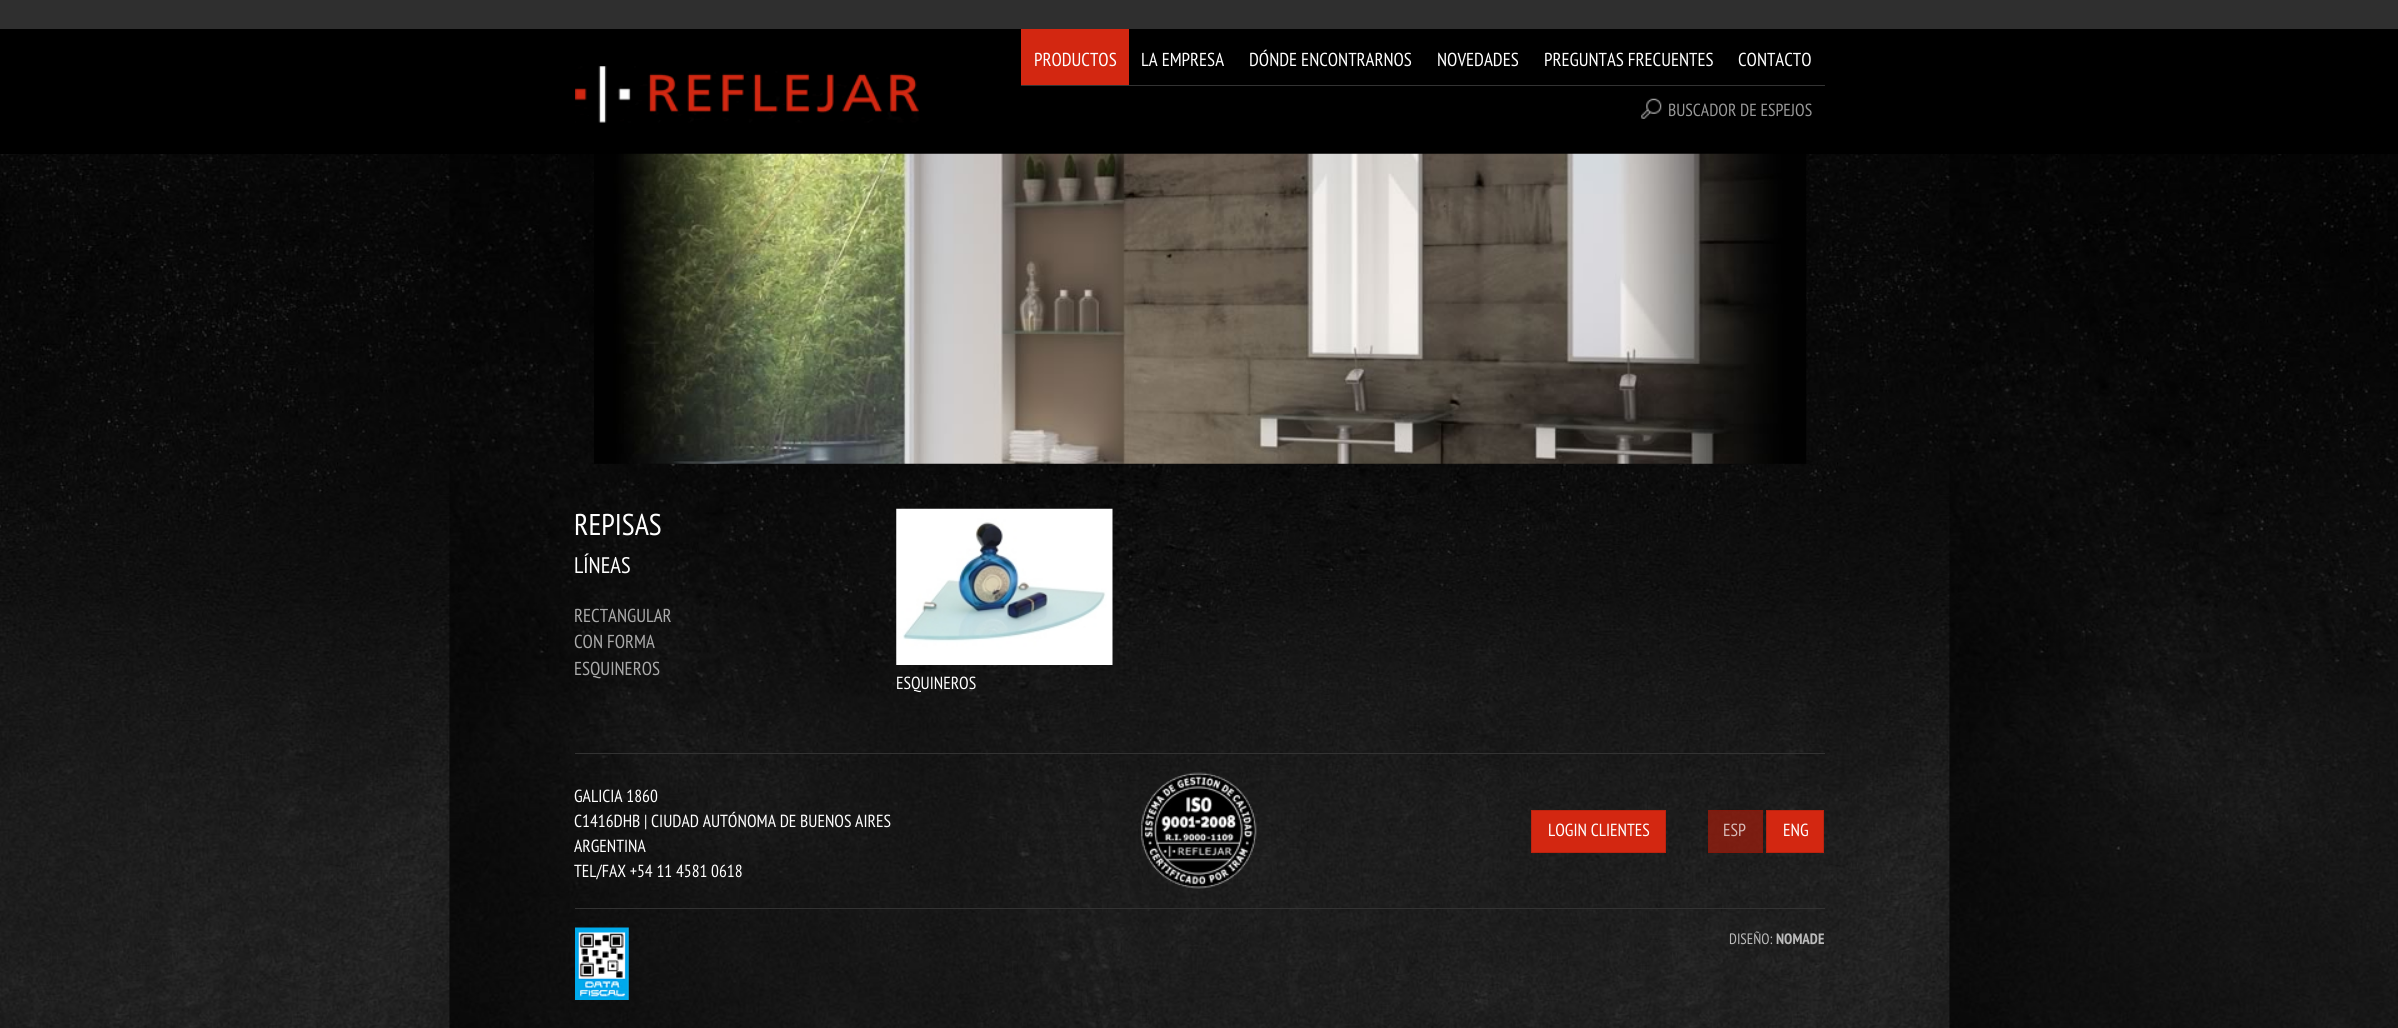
import math
import cairo


def paste(ctx, path, x, y, w, h):
	ctx.save()
	ctx.set_source_surface(cairo.ImageSurface.create_from_png(path), x, y)
	ctx.rectangle(x, y, w, h)
	ctx.fill()
	ctx.restore()

def draw(ctx):
	ctx.set_source_rgb(1, 1, 1)
	ctx.paint()
	paste(ctx, 'media/1.png', 0, 154, 2398, 874)
	ctx.set_source_rgb(0.184, 0.184, 0.184)
	ctx.rectangle(0, 0, 2398, 29)
	ctx.fill()
	ctx.set_source_rgb(0, 0, 0)
	ctx.rectangle(0, 29, 2398, 125)
	ctx.fill()
	paste(ctx, 'media/2.png', 575, 66, 344, 57)
	ctx.set_source_rgb(0.2, 0.2, 0.2)
	ctx.rectangle(1021, 85, 804, 1)
	ctx.fill()
	ctx.set_source_rgb(0.827, 0.153, 0.067)
	ctx.rectangle(1021, 29, 108, 56)
	ctx.fill()
	ctx.select_font_face('PT Sans Narrow')
	ctx.set_font_size(18.75)
	ctx.set_source_rgb(1, 1, 1)
	for x, y, s in [
		(1034, 66, 'PRODUCTOS'),
		(1141, 66, 'LA EMPRESA'),
		(1249, 66, 'DÓNDE ENCONTRARNOS'),
		(1437, 66, 'NOVEDADES'),
		(1544, 66, 'PREGUNTAS FRECUENTES'),
		(1738, 66, 'CONTACTO'),
	]:
		ctx.move_to(x, y)
		ctx.show_text(s)
	paste(ctx, 'media/3.png', 1641, 98, 21, 21)
	ctx.set_font_size(17.5)
	ctx.set_source_rgb(0.6, 0.6, 0.6)
	ctx.move_to(1668, 116)
	ctx.show_text('BUSCADOR DE ESPEJOS')
	paste(ctx, 'media/4.png', 594, 153, 1213, 311)
	ctx.set_font_size(30)
	ctx.set_source_rgb(1, 1, 1)
	ctx.move_to(574, 535)
	ctx.show_text('REPISAS')
	ctx.set_font_size(22.5)
	ctx.move_to(574, 573)
	ctx.show_text('LÍNEAS')
	ctx.set_font_size(18.75)
	ctx.set_source_rgb(0.667, 0.667, 0.667)
	for x, y, s in [
		(574, 622, 'RECTANGULAR'),
		(574, 648, 'CON FORMA'),
		(574, 675, 'ESQUINEROS'),
	]:
		ctx.move_to(x, y)
		ctx.show_text(s)
	paste(ctx, 'media/5.png', 896, 508, 217, 157)
	ctx.set_font_size(17.5)
	ctx.set_source_rgb(1, 1, 1)
	ctx.move_to(896, 689)
	ctx.show_text('ESQUINEROS')
	ctx.set_source_rgb(0.2, 0.2, 0.2)
	ctx.rectangle(575, 753, 1250, 1)
	ctx.fill()
	ctx.set_source_rgb(1, 1, 1)
	for x, y, s in [
		(574, 802, 'GALICIA 1860'),
		(574, 827, 'C1416DHB | CIUDAD AUTÓNOMA DE BUENOS AIRES'),
		(574, 852, 'ARGENTINA'),
		(574, 877, 'TEL/FAX +54 11 4581 0618'),
	]:
		ctx.move_to(x, y)
		ctx.show_text(s)
	paste(ctx, 'media/6.png', 1141, 772, 116, 117)
	ctx.set_source_rgb(0.827, 0.153, 0.067)
	ctx.rectangle(1531.5, 810.5, 134, 42)
	ctx.fill_preserve()
	ctx.set_source_rgb(0.733, 0.137, 0.059)
	ctx.set_line_width(1)
	ctx.stroke()
	ctx.set_source_rgb(1, 1, 1)
	ctx.move_to(1548, 836)
	ctx.show_text('LOGIN CLIENTES')
	ctx.set_source_rgba(0.643, 0.118, 0.051, 0.7)
	ctx.rectangle(1708, 810, 55, 43)
	ctx.fill()
	ctx.rectangle(1708.5, 810.5, 54, 42)
	ctx.set_source_rgba(0.514, 0.094, 0.043, 0.7)
	ctx.stroke()
	ctx.set_source_rgb(0.843, 0.733, 0.722)
	ctx.move_to(1723, 836)
	ctx.show_text('ESP')
	ctx.set_source_rgb(0.827, 0.153, 0.067)
	ctx.rectangle(1766.5, 810.5, 57, 42)
	ctx.fill_preserve()
	ctx.set_source_rgb(0.733, 0.137, 0.059)
	ctx.stroke()
	ctx.set_source_rgb(1, 1, 1)
	ctx.move_to(1783, 836)
	ctx.show_text('ENG')
	ctx.set_source_rgb(0.2, 0.2, 0.2)
	ctx.rectangle(575, 908, 1250, 1)
	ctx.fill()
	paste(ctx, 'media/7.png', 575, 927, 54, 73)
	ctx.set_font_size(15)
	ctx.set_source_rgb(0.733, 0.733, 0.733)
	ctx.move_to(1729, 944)
	ctx.show_text('DISEÑO:')
	ctx.select_font_face('PT Sans Narrow', cairo.FONT_SLANT_NORMAL, cairo.FONT_WEIGHT_BOLD)
	ctx.move_to(1776, 944)
	ctx.show_text('NOMADE')


surface = cairo.ImageSurface(cairo.FORMAT_RGB24, 2398, 1028)
ctx = cairo.Context(surface)
options = cairo.FontOptions()
options.set_hint_metrics(cairo.HINT_METRICS_OFF)
options.set_hint_style(cairo.HINT_STYLE_NONE)
ctx.set_font_options(options)
ctx.set_miter_limit(4)
draw(ctx)
surface.write_to_png('image.png')
